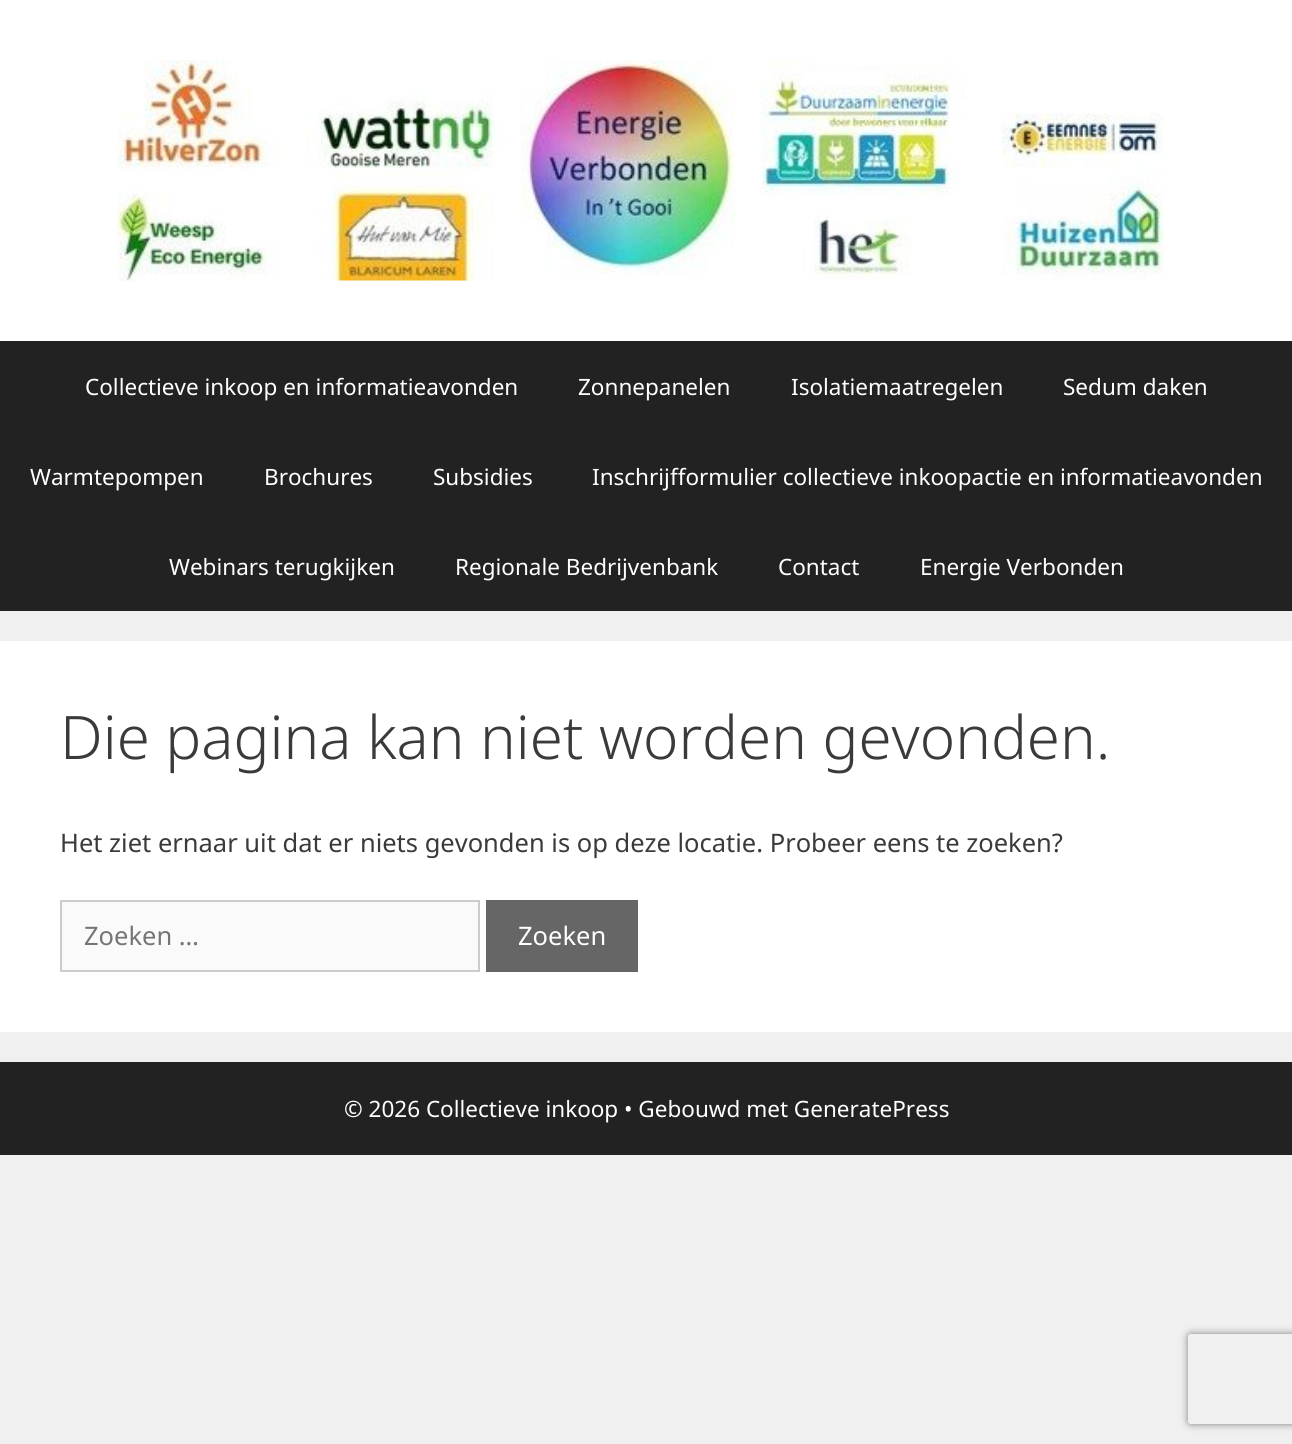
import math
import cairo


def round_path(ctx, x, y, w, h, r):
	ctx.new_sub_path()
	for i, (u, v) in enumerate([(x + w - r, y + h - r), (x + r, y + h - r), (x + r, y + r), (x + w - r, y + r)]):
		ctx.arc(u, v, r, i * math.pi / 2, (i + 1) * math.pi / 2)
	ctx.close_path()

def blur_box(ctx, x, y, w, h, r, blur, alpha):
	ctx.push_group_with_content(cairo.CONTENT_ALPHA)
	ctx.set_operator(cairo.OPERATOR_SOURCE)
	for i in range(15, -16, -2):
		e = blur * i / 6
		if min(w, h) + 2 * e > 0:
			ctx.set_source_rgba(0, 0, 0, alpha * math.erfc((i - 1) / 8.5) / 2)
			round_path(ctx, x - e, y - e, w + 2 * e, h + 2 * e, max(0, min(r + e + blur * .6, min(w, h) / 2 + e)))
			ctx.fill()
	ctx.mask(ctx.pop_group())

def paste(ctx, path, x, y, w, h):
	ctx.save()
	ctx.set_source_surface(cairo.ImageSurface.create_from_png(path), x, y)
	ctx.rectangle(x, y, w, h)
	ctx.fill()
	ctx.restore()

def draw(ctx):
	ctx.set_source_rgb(0.941, 0.941, 0.941)
	ctx.paint()
	ctx.set_source_rgb(1, 1, 1)
	ctx.rectangle(0, 0, 1292, 341)
	ctx.fill()
	paste(ctx, 'media/1.png', 116, 60, 1048, 221)
	ctx.set_source_rgb(0.133, 0.133, 0.133)
	ctx.rectangle(0, 341, 1292, 270)
	ctx.fill()
	ctx.select_font_face('Noto Sans')
	ctx.set_font_size(22.5)
	ctx.set_source_rgb(1, 1, 1)
	for x, y, s in [
		(85, 395, 'Collectieve inkoop en informatieavonden'),
		(578, 395, 'Zonnepanelen'),
		(791, 395, 'Isolatiemaatregelen'),
		(1063, 395, 'Sedum daken'),
		(30, 485, 'Warmtepompen'),
		(264, 485, 'Brochures'),
		(433, 485, 'Subsidies'),
		(592, 485, 'Inschrijfformulier collectieve inkoopactie en informatieavonden'),
		(169, 575, 'Webinars terugkijken'),
		(455, 575, 'Regionale Bedrijvenbank'),
		(778, 575, 'Contact'),
		(920, 575, 'Energie Verbonden'),
	]:
		ctx.move_to(x, y)
		ctx.show_text(s)
	ctx.rectangle(0, 641, 1292, 391)
	ctx.fill()
	ctx.select_font_face('Noto Sans Light')
	ctx.set_font_size(60)
	ctx.set_source_rgb(0.227, 0.227, 0.227)
	ctx.move_to(60, 759)
	ctx.show_text('Die pagina kan niet worden gevonden.')
	ctx.select_font_face('Noto Sans')
	ctx.set_font_size(25.5)
	ctx.move_to(60, 852)
	ctx.show_text('Het ziet ernaar uit dat er niets gevonden is op deze locatie. Probeer eens te zoeken?')
	ctx.set_source_rgb(0.98, 0.98, 0.98)
	ctx.rectangle(61, 901, 418, 70)
	ctx.fill_preserve()
	ctx.set_source_rgb(0.8, 0.8, 0.8)
	ctx.stroke()
	ctx.set_source_rgb(0.459, 0.459, 0.459)
	ctx.move_to(84, 945)
	ctx.show_text('Zoeken …')
	ctx.set_source_rgb(0.4, 0.4, 0.4)
	ctx.rectangle(486, 900, 152, 72)
	ctx.fill()
	ctx.set_source_rgb(1, 1, 1)
	ctx.move_to(518, 945)
	ctx.show_text('Zoeken')
	ctx.set_source_rgb(0.133, 0.133, 0.133)
	ctx.rectangle(0, 1062, 1292, 93)
	ctx.fill()
	ctx.set_font_size(22.5)
	ctx.set_source_rgb(1, 1, 1)
	ctx.move_to(344, 1117)
	ctx.show_text('© 2026 Collectieve inkoop • Gebouwd met GeneratePress')
	ctx.save()
	ctx.set_fill_rule(cairo.FILL_RULE_EVEN_ODD)
	ctx.new_path()
	ctx.move_to(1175, 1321)
	ctx.line_to(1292, 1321)
	ctx.line_to(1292, 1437)
	ctx.line_to(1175, 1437)
	ctx.close_path()
	ctx.move_to(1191, 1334)
	ctx.line_to(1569, 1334)
	ctx.curve_to(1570.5, 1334, 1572, 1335.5, 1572, 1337)
	ctx.line_to(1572, 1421)
	ctx.curve_to(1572, 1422.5, 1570.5, 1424, 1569, 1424)
	ctx.line_to(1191, 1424)
	ctx.curve_to(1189.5, 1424, 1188, 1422.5, 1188, 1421)
	ctx.line_to(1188, 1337)
	ctx.curve_to(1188, 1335.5, 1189.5, 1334, 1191, 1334)
	ctx.close_path()
	ctx.clip()
	ctx.set_source_rgb(0.502, 0.502, 0.502)
	blur_box(ctx, 1188, 1334, 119, 90, 3, 4, 1)
	ctx.restore()


surface = cairo.ImageSurface(cairo.FORMAT_RGB24, 1292, 1444)
ctx = cairo.Context(surface)
options = cairo.FontOptions()
options.set_hint_metrics(cairo.HINT_METRICS_OFF)
options.set_hint_style(cairo.HINT_STYLE_NONE)
ctx.set_font_options(options)
ctx.set_miter_limit(4)
draw(ctx)
surface.write_to_png('image.png')
